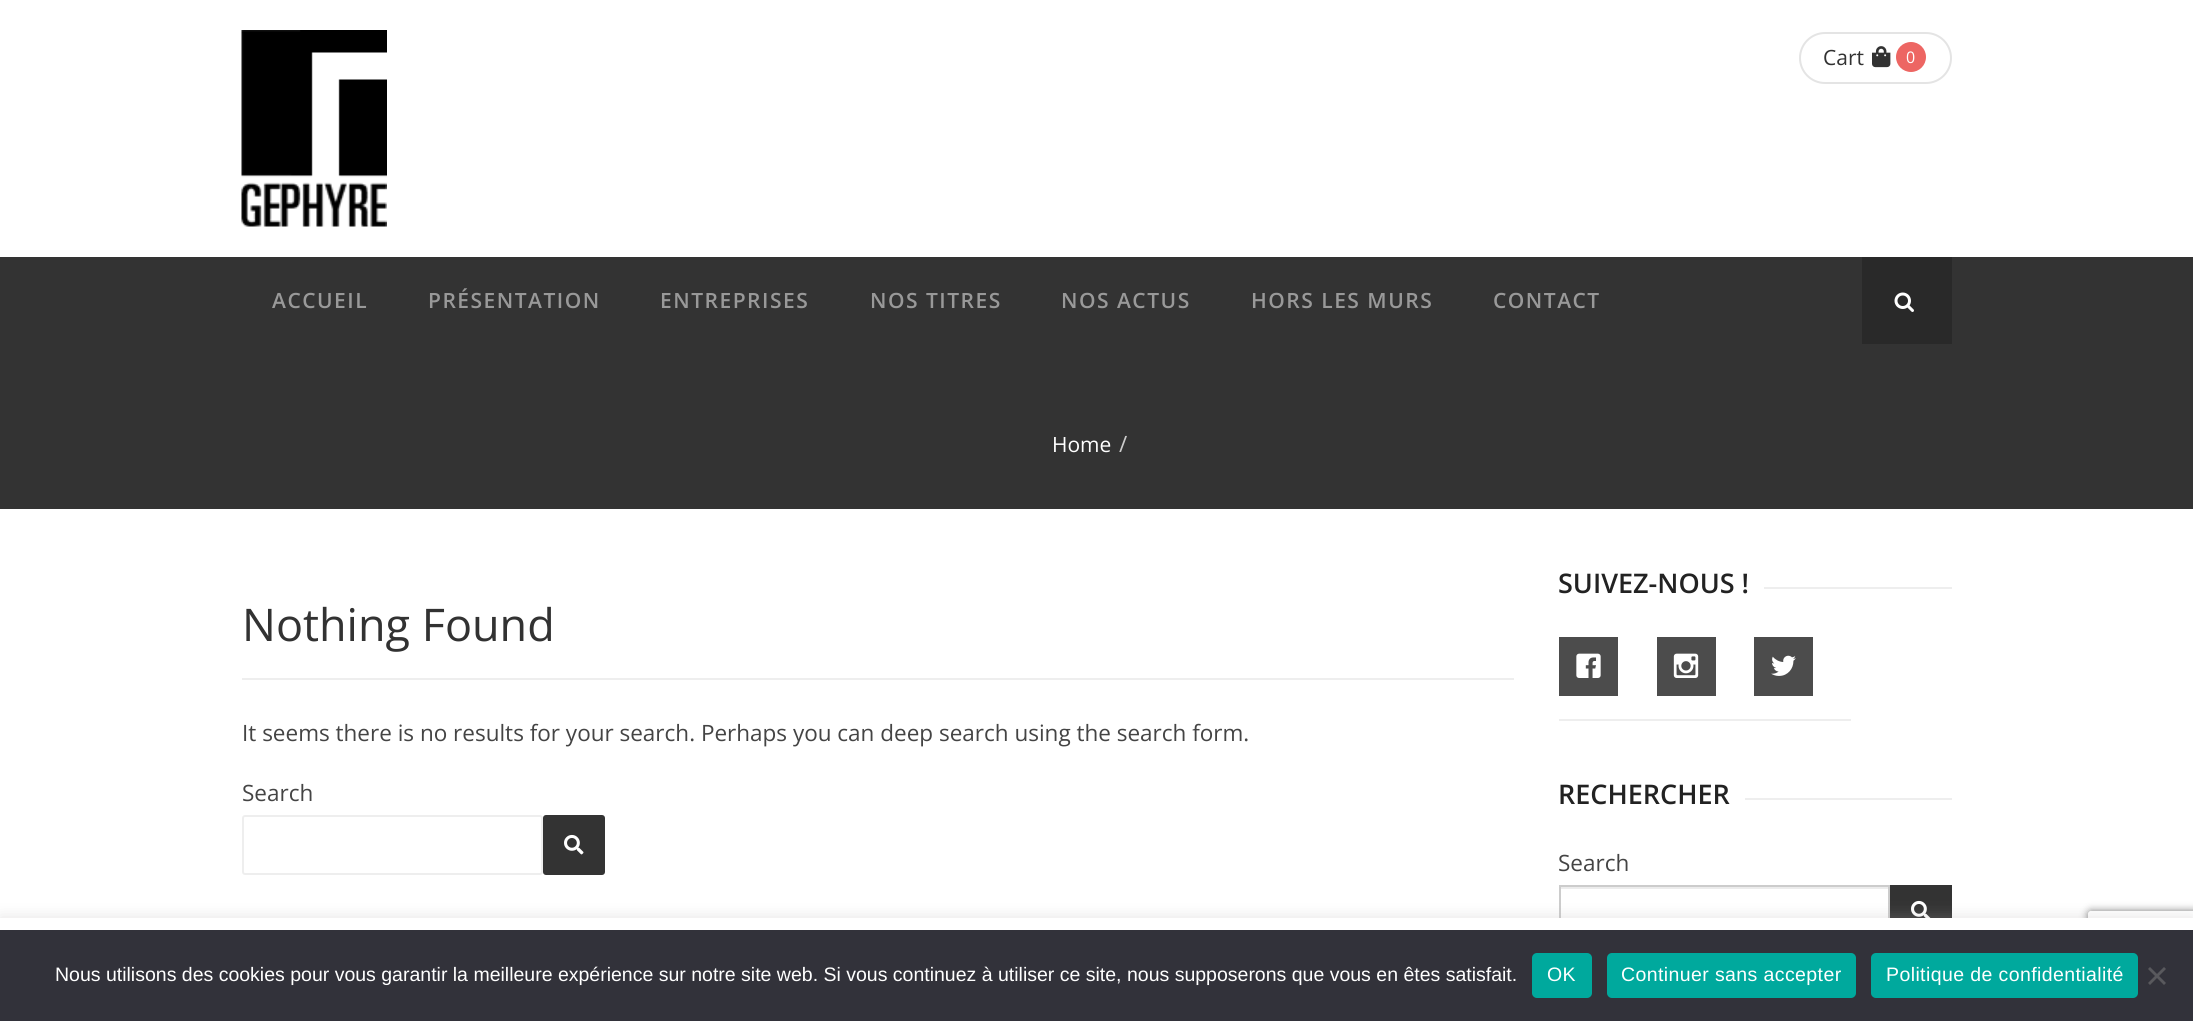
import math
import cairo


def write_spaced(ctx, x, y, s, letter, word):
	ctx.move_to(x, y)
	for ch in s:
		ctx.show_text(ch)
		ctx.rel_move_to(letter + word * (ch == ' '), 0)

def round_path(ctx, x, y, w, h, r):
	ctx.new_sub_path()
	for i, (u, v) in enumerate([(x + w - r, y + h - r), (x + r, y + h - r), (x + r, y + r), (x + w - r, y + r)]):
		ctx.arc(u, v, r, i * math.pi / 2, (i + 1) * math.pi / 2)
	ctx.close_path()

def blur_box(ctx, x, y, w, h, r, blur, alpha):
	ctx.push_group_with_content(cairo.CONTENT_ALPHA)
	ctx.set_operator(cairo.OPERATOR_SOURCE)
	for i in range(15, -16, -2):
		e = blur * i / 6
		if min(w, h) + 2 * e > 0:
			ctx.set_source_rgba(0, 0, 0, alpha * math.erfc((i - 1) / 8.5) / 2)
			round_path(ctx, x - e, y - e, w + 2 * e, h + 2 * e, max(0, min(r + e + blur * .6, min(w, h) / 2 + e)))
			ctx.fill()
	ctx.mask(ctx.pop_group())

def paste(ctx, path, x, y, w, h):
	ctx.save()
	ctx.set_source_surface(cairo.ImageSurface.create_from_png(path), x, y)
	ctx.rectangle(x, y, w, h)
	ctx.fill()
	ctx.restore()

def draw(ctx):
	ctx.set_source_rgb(1, 1, 1)
	ctx.paint()
	paste(ctx, 'media/1.png', 241, 30, 146, 197)
	round_path(ctx, 1800, 33, 151, 50, 25)
	ctx.set_source_rgb(0.894, 0.894, 0.894)
	ctx.stroke()
	ctx.select_font_face('Open Sans')
	ctx.set_font_size(21)
	ctx.set_source_rgb(0.196, 0.196, 0.196)
	ctx.move_to(1823, 65)
	ctx.show_text('Cart')
	paste(ctx, 'media/2.png', 1872, 46, 19, 22)
	ctx.set_source_rgb(0.929, 0.4, 0.388)
	ctx.arc(1911, 57, 15, 0, 2 * math.pi)
	ctx.fill()
	ctx.set_font_size(16)
	ctx.set_source_rgb(1, 1, 1)
	ctx.move_to(1906, 63)
	ctx.show_text('0')
	ctx.set_source_rgb(0.2, 0.2, 0.2)
	ctx.rectangle(0, 257, 2193, 252)
	ctx.fill()
	ctx.select_font_face('Open Sans SemiBold')
	ctx.set_font_size(21)
	ctx.set_source_rgb(0.6, 0.6, 0.6)
	for x, y, s in [
		(272, 308, 'ACCUEIL'),
		(428, 308, 'PRÉSENTATION'),
		(660, 308, 'ENTREPRISES'),
		(870, 308, 'NOS TITRES'),
		(1061, 308, 'NOS ACTUS'),
		(1251, 308, 'HORS LES MURS'),
		(1493, 308, 'CONTACT'),
	]:
		write_spaced(ctx, x, y, s, 1.5, 0)
	ctx.set_source_rgb(0.161, 0.161, 0.161)
	ctx.rectangle(1862, 257, 90, 87)
	ctx.fill()
	paste(ctx, 'media/3.png', 1894, 292, 20, 20)
	ctx.select_font_face('Open Sans')
	ctx.set_source_rgb(1, 1, 1)
	ctx.move_to(1052, 452)
	ctx.show_text('Home')
	ctx.set_font_size(22.5)
	ctx.set_source_rgb(0.8, 0.8, 0.8)
	ctx.move_to(1119, 452)
	ctx.show_text('/')
	ctx.set_source_rgb(0.933, 0.933, 0.933)
	ctx.rectangle(242, 678, 1272, 2)
	ctx.fill()
	ctx.set_font_size(45)
	ctx.set_source_rgb(0.196, 0.196, 0.196)
	ctx.move_to(242, 641)
	ctx.show_text('Nothing Found')
	ctx.set_font_size(22.5)
	ctx.set_source_rgb(0.267, 0.267, 0.267)
	ctx.move_to(242, 741)
	ctx.show_text('It seems there is no results for your search. Perhaps you can deep search using the search form.')
	ctx.move_to(242, 801)
	ctx.show_text('Search')
	round_path(ctx, 243, 816, 299, 58, 2)
	ctx.set_source_rgb(0.933, 0.933, 0.933)
	ctx.stroke()
	ctx.set_source_rgb(0.2, 0.2, 0.2)
	round_path(ctx, 544.5, 816.5, 59, 57, 1.5)
	ctx.fill_preserve()
	ctx.set_line_width(3)
	ctx.stroke()
	paste(ctx, 'media/4.png', 564, 834, 20, 21)
	ctx.select_font_face('Open Sans SemiBold')
	ctx.set_font_size(27)
	ctx.set_source_rgb(0.133, 0.133, 0.133)
	ctx.move_to(1558, 593)
	ctx.show_text('SUIVEZ-NOUS !')
	ctx.set_source_rgb(0.933, 0.933, 0.933)
	ctx.rectangle(1764, 587, 188, 2)
	ctx.rectangle(1559, 719, 292, 2)
	ctx.fill()
	ctx.set_source_rgb(0.298, 0.298, 0.298)
	ctx.rectangle(1559, 637, 59, 59)
	ctx.fill()
	paste(ctx, 'media/5.png', 1576, 653, 25, 25)
	ctx.rectangle(1657, 637, 59, 59)
	ctx.fill()
	paste(ctx, 'media/6.png', 1673, 653, 26, 25)
	ctx.rectangle(1754, 637, 59, 59)
	ctx.fill()
	paste(ctx, 'media/7.png', 1771, 655, 25, 21)
	ctx.set_source_rgb(0.133, 0.133, 0.133)
	ctx.move_to(1558, 804)
	ctx.show_text('RECHERCHER')
	ctx.set_source_rgb(0.933, 0.933, 0.933)
	ctx.rectangle(1745, 798, 207, 2)
	ctx.fill()
	ctx.select_font_face('Open Sans')
	ctx.set_font_size(22.5)
	ctx.set_source_rgb(0.267, 0.267, 0.267)
	ctx.move_to(1558, 871)
	ctx.show_text('Search')
	ctx.set_source_rgb(0.925, 0.925, 0.925)
	ctx.rectangle(1560, 887, 329, 2)
	ctx.fill()
	ctx.rectangle(1560, 886, 329, 49)
	ctx.set_source_rgb(0.8, 0.8, 0.8)
	ctx.set_line_width(2)
	ctx.stroke()
	ctx.set_source_rgb(0.2, 0.2, 0.2)
	ctx.rectangle(1890, 885, 62, 33)
	ctx.fill()
	paste(ctx, 'media/8.png', 1911, 900, 20, 18)
	ctx.set_source_rgb(0.675, 0.671, 0.671)
	blur_box(ctx, 0, 917, 2193, 103, 0, 7.5, 0.3)
	ctx.save()
	ctx.set_fill_rule(cairo.FILL_RULE_EVEN_ODD)
	ctx.new_path()
	ctx.move_to(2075, 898)
	ctx.line_to(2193, 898)
	ctx.line_to(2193, 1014)
	ctx.line_to(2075, 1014)
	ctx.close_path()
	ctx.move_to(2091, 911)
	ctx.line_to(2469, 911)
	ctx.curve_to(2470.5, 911, 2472, 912.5, 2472, 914)
	ctx.line_to(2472, 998)
	ctx.curve_to(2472, 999.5, 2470.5, 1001, 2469, 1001)
	ctx.line_to(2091, 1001)
	ctx.curve_to(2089.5, 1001, 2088, 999.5, 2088, 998)
	ctx.line_to(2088, 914)
	ctx.curve_to(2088, 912.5, 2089.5, 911, 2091, 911)
	ctx.close_path()
	ctx.clip()
	ctx.set_source_rgb(0.502, 0.502, 0.502)
	blur_box(ctx, 2088, 911, 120, 90, 3, 4, 1)
	ctx.restore()
	ctx.set_source_rgb(1, 1, 1)
	ctx.rectangle(0, 918, 2193, 12)
	ctx.fill()
	ctx.set_source_rgb(0.196, 0.196, 0.227)
	ctx.rectangle(0, 930, 2193, 91)
	ctx.fill()
	ctx.select_font_face('Liberation Sans')
	ctx.set_font_size(19.5)
	ctx.set_source_rgb(1, 1, 1)
	ctx.move_to(55, 981)
	ctx.show_text('Nous utilisons des cookies pour vous garantir la meilleure expérience sur notre site web. Si vous continuez à utiliser ce site, nous supposerons que vous en êtes satisfait.')
	ctx.set_source_rgb(0, 0.663, 0.616)
	round_path(ctx, 1532, 953, 60, 45, 5)
	ctx.fill()
	ctx.set_source_rgb(1, 1, 1)
	write_spaced(ctx, 1547, 981, 'OK', 0.4, 0)
	ctx.set_source_rgb(0, 0.663, 0.616)
	round_path(ctx, 1607, 953, 249, 45, 5)
	ctx.fill()
	ctx.set_source_rgb(1, 1, 1)
	write_spaced(ctx, 1621, 981, 'Continuer sans accepter', 0.4, 0)
	ctx.set_source_rgb(0, 0.663, 0.616)
	round_path(ctx, 1871, 953, 267, 45, 5)
	ctx.fill()
	ctx.set_source_rgb(1, 1, 1)
	write_spaced(ctx, 1886, 981, 'Politique de confidentialité', 0.4, 0)
	ctx.set_source_rgb(0.349, 0.349, 0.365)
	ctx.new_path()
	ctx.move_to(2164, 967)
	ctx.line_to(2166, 969)
	ctx.line_to(2150, 985)
	ctx.line_to(2148, 983)
	ctx.close_path()
	ctx.fill()
	ctx.new_path()
	ctx.move_to(2148, 969)
	ctx.line_to(2150, 967)
	ctx.line_to(2166, 983)
	ctx.line_to(2164, 985)
	ctx.close_path()
	ctx.fill()


surface = cairo.ImageSurface(cairo.FORMAT_RGB24, 2193, 1021)
ctx = cairo.Context(surface)
options = cairo.FontOptions()
options.set_hint_metrics(cairo.HINT_METRICS_OFF)
options.set_hint_style(cairo.HINT_STYLE_NONE)
ctx.set_font_options(options)
ctx.set_miter_limit(4)
draw(ctx)
surface.write_to_png('image.png')
